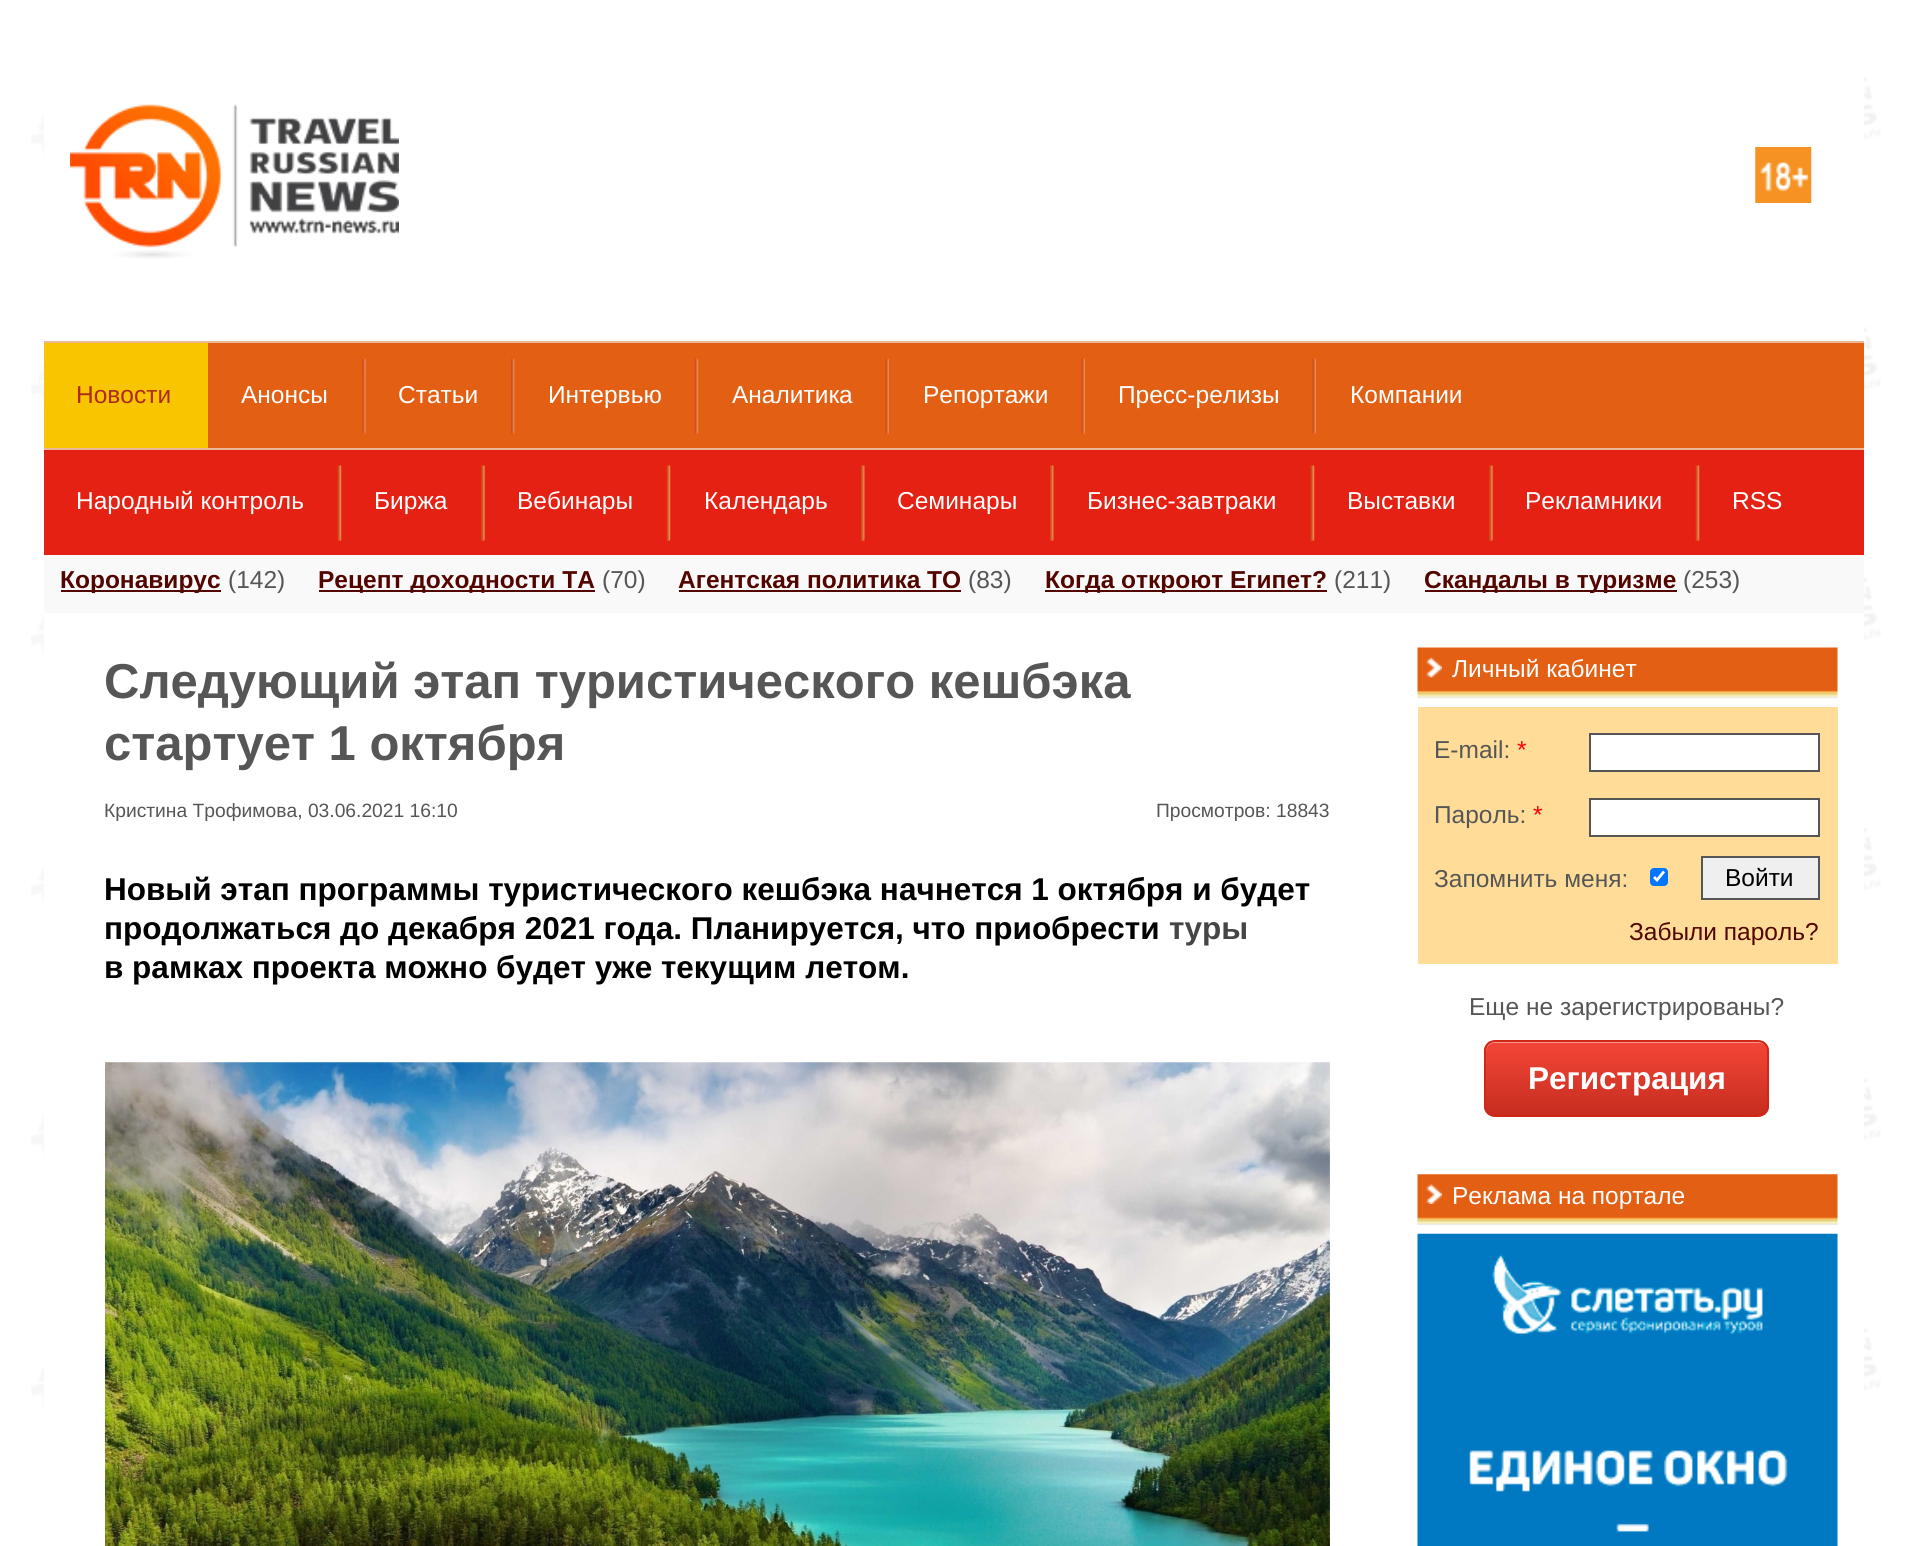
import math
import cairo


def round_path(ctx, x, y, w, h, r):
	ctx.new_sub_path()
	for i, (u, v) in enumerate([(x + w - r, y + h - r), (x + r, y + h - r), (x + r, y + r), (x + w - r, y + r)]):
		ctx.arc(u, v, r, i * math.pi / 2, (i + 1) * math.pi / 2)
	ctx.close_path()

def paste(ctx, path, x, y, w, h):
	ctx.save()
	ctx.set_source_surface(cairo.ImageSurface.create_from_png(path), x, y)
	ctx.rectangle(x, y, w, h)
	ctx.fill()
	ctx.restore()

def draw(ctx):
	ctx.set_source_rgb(1, 1, 1)
	ctx.paint()
	paste(ctx, 'media/1.png', 31, 67, 1850, 1366)
	ctx.set_source_rgb(1, 1, 1)
	ctx.rectangle(44, 67, 1820, 1366)
	ctx.fill()
	paste(ctx, 'media/2.png', 70, 104, 329, 155)
	paste(ctx, 'media/3.png', 1755, 147, 57, 56)
	ctx.set_source_rgb(0.89, 0.373, 0.075)
	ctx.rectangle(208, 343, 1656, 105)
	ctx.fill()
	ctx.set_source_rgb(0.925, 0.718, 0.6)
	ctx.rectangle(44, 341, 1820, 2)
	ctx.fill()
	ctx.set_source_rgb(0.973, 0.769, 0)
	ctx.rectangle(44, 343, 164, 105)
	ctx.fill()
	ctx.select_font_face('Liberation Sans')
	ctx.set_font_size(24.5)
	ctx.set_source_rgb(0.671, 0.169, 0.122)
	ctx.move_to(76, 403)
	ctx.show_text('Новости')
	paste(ctx, 'media/4.png', 362, 358, 4, 76)
	ctx.set_source_rgb(1, 1, 1)
	ctx.move_to(241, 403)
	ctx.show_text('Анонсы')
	paste(ctx, 'media/5.png', 511, 358, 4, 76)
	ctx.move_to(398, 403)
	ctx.show_text('Статьи')
	paste(ctx, 'media/6.png', 694, 358, 5, 76)
	ctx.move_to(548, 403)
	ctx.show_text('Интервью')
	paste(ctx, 'media/7.png', 885, 358, 4, 76)
	ctx.move_to(732, 403)
	ctx.show_text('Аналитика')
	paste(ctx, 'media/7.png', 1081, 358, 4, 76)
	ctx.move_to(923, 403)
	ctx.show_text('Репортажи')
	paste(ctx, 'media/7.png', 1312, 358, 4, 76)
	ctx.move_to(1118, 403)
	ctx.show_text('Пресс-релизы')
	ctx.move_to(1350, 403)
	ctx.show_text('Компании')
	ctx.set_source_rgb(0.894, 0.129, 0.071)
	ctx.rectangle(44, 450, 1820, 105)
	ctx.fill()
	ctx.set_source_rgb(0.925, 0.718, 0.6)
	ctx.rectangle(44, 448, 1820, 2)
	ctx.fill()
	paste(ctx, 'media/8.png', 337, 465, 5, 76)
	ctx.set_source_rgb(1, 1, 1)
	ctx.move_to(76, 509)
	ctx.show_text('Народный контроль')
	paste(ctx, 'media/9.png', 481, 465, 4, 76)
	ctx.move_to(374, 509)
	ctx.show_text('Биржа')
	paste(ctx, 'media/8.png', 666, 465, 5, 76)
	ctx.move_to(517, 509)
	ctx.show_text('Вебинары')
	paste(ctx, 'media/10.png', 861, 465, 4, 76)
	ctx.move_to(704, 509)
	ctx.show_text('Календарь')
	paste(ctx, 'media/10.png', 1050, 465, 4, 76)
	ctx.move_to(897, 509)
	ctx.show_text('Семинары')
	paste(ctx, 'media/8.png', 1310, 465, 5, 76)
	ctx.move_to(1087, 509)
	ctx.show_text('Бизнес-завтраки')
	paste(ctx, 'media/9.png', 1489, 465, 4, 76)
	ctx.move_to(1347, 509)
	ctx.show_text('Выставки')
	paste(ctx, 'media/8.png', 1695, 465, 5, 76)
	ctx.move_to(1525, 509)
	ctx.show_text('Рекламники')
	ctx.move_to(1732, 509)
	ctx.show_text('RSS')
	ctx.set_source_rgb(0.976, 0.976, 0.976)
	ctx.rectangle(44, 555, 1820, 58)
	ctx.fill()
	ctx.set_source_rgb(0.325, 0.027, 0)
	ctx.rectangle(61, 590, 160, 2)
	ctx.fill()
	ctx.select_font_face('Liberation Sans', cairo.FONT_SLANT_NORMAL, cairo.FONT_WEIGHT_BOLD)
	ctx.move_to(60, 588)
	ctx.show_text('Коронавирус')
	ctx.select_font_face('Liberation Sans')
	ctx.set_source_rgb(0.341, 0.337, 0.337)
	ctx.move_to(228, 588)
	ctx.show_text('(142)')
	ctx.set_source_rgb(0.325, 0.027, 0)
	ctx.rectangle(319, 590, 276, 2)
	ctx.fill()
	ctx.select_font_face('Liberation Sans', cairo.FONT_SLANT_NORMAL, cairo.FONT_WEIGHT_BOLD)
	ctx.move_to(318, 588)
	ctx.show_text('Рецепт доходности ТА')
	ctx.select_font_face('Liberation Sans')
	ctx.set_source_rgb(0.341, 0.337, 0.337)
	ctx.move_to(602, 588)
	ctx.show_text('(70)')
	ctx.select_font_face('Liberation Sans', cairo.FONT_SLANT_NORMAL, cairo.FONT_WEIGHT_BOLD)
	ctx.set_source_rgb(0.325, 0.027, 0)
	ctx.move_to(678, 588)
	ctx.show_text('Агентская политика ТО')
	ctx.rectangle(679, 590, 282, 2)
	ctx.fill()
	ctx.select_font_face('Liberation Sans')
	ctx.set_source_rgb(0.341, 0.337, 0.337)
	ctx.move_to(968, 588)
	ctx.show_text('(83)')
	ctx.set_source_rgb(0.325, 0.027, 0)
	ctx.rectangle(1045, 590, 282, 2)
	ctx.fill()
	ctx.select_font_face('Liberation Sans', cairo.FONT_SLANT_NORMAL, cairo.FONT_WEIGHT_BOLD)
	ctx.move_to(1045, 588)
	ctx.show_text('Когда откроют Египет?')
	ctx.select_font_face('Liberation Sans')
	ctx.set_source_rgb(0.341, 0.337, 0.337)
	ctx.move_to(1334, 588)
	ctx.show_text('(211)')
	ctx.set_source_rgb(0.325, 0.027, 0)
	ctx.rectangle(1425, 590, 252, 2)
	ctx.fill()
	ctx.select_font_face('Liberation Sans', cairo.FONT_SLANT_NORMAL, cairo.FONT_WEIGHT_BOLD)
	ctx.move_to(1424, 588)
	ctx.show_text('Скандалы в туризме')
	ctx.select_font_face('Liberation Sans')
	ctx.set_source_rgb(0.341, 0.337, 0.337)
	ctx.move_to(1683, 588)
	ctx.show_text('(253)')
	ctx.select_font_face('Liberation Sans', cairo.FONT_SLANT_NORMAL, cairo.FONT_WEIGHT_BOLD)
	ctx.set_font_size(49)
	ctx.move_to(104, 698)
	ctx.show_text('Следующий этап туристического кешбэка')
	ctx.move_to(104, 760)
	ctx.show_text('стартует 1 октября')
	ctx.select_font_face('Liberation Sans')
	ctx.set_font_size(19.25)
	ctx.move_to(104, 817)
	ctx.show_text('Кристина Трофимова, 03.06.2021 16:10')
	ctx.move_to(1156, 817)
	ctx.show_text('Просмотров: 18843')
	ctx.select_font_face('Liberation Sans', cairo.FONT_SLANT_NORMAL, cairo.FONT_WEIGHT_BOLD)
	ctx.set_font_size(31.5)
	ctx.set_source_rgb(0, 0, 0)
	ctx.move_to(104, 900)
	ctx.show_text('Новый этап программы туристического кешбэка начнется 1 октября и будет')
	ctx.move_to(104, 939)
	ctx.show_text('продолжаться до декабря 2021 года. Планируется, что приобрести')
	ctx.set_source_rgb(0.271, 0.271, 0.271)
	ctx.move_to(1169, 939)
	ctx.show_text('туры')
	ctx.set_source_rgb(0, 0, 0)
	ctx.move_to(104, 978)
	ctx.show_text('в рамках проекта можно будет уже текущим летом.')
	paste(ctx, 'media/11.png', 105, 1062, 1225, 484)
	paste(ctx, 'media/12.png', 1417, 647, 421, 52)
	paste(ctx, 'media/13.png', 1426, 657, 16, 21)
	ctx.select_font_face('Liberation Sans')
	ctx.set_font_size(24.5)
	ctx.set_source_rgb(1, 1, 1)
	ctx.move_to(1452, 677)
	ctx.show_text('Личный кабинет')
	ctx.set_source_rgb(1, 0.867, 0.6)
	ctx.rectangle(1418, 707, 420, 257)
	ctx.fill()
	ctx.set_source_rgb(0.341, 0.337, 0.337)
	ctx.move_to(1434, 758)
	ctx.show_text('E-mail:')
	ctx.set_source_rgb(1, 0, 0)
	ctx.move_to(1517, 758)
	ctx.show_text('*')
	ctx.set_source_rgb(1, 1, 1)
	ctx.rectangle(1590, 734, 229, 37)
	ctx.fill_preserve()
	ctx.set_source_rgb(0.341, 0.337, 0.337)
	ctx.stroke()
	ctx.move_to(1434, 823)
	ctx.show_text('Пароль:')
	ctx.set_source_rgb(1, 0, 0)
	ctx.move_to(1533, 823)
	ctx.show_text('*')
	ctx.set_source_rgb(1, 1, 1)
	ctx.rectangle(1590, 799, 229, 37)
	ctx.fill_preserve()
	ctx.set_source_rgb(0.341, 0.337, 0.337)
	ctx.stroke()
	ctx.move_to(1434, 887)
	ctx.show_text('Запомнить меня:')
	ctx.set_source_rgb(0, 0.459, 1)
	round_path(ctx, 1650, 868, 18, 18, 4)
	ctx.fill()
	ctx.new_path()
	ctx.move_to(1654, 877)
	ctx.line_to(1657, 880)
	ctx.line_to(1664, 871.5)
	ctx.set_source_rgb(1, 1, 1)
	ctx.set_line_width(2.8)
	ctx.stroke()
	ctx.set_source_rgb(0.937, 0.937, 0.937)
	ctx.rectangle(1702, 857, 117, 42)
	ctx.fill_preserve()
	ctx.set_source_rgb(0.341, 0.337, 0.337)
	ctx.set_line_width(2)
	ctx.stroke()
	ctx.set_source_rgb(0, 0, 0)
	ctx.move_to(1725, 886)
	ctx.show_text('Войти')
	ctx.set_source_rgb(0.325, 0.027, 0)
	ctx.move_to(1629, 940)
	ctx.show_text('Забыли пароль?')
	ctx.set_source_rgb(0.341, 0.337, 0.337)
	ctx.move_to(1469, 1015)
	ctx.show_text('Еще не зарегистрированы?')
	ctx.save()
	round_path(ctx, 1484, 1040, 285, 77, 11)
	ctx.clip()
	gradient = cairo.LinearGradient(1627, 1041, 1627, 1115)
	gradient.add_color_stop_rgba(0.05, 0.949, 0.271, 0.216, 1)
	gradient.add_color_stop_rgba(1, 0.776, 0.176, 0.122, 1)
	ctx.set_source(gradient)
	ctx.rectangle(1484, 1041, 285, 74)
	ctx.fill()
	ctx.restore()
	ctx.set_source_rgb(0.961, 0.592, 0.557)
	ctx.new_path()
	ctx.move_to(1494, 1043)
	ctx.line_to(1759, 1043)
	ctx.curve_to(1764, 1043, 1768, 1047, 1768, 1052)
	ctx.line_to(1768, 1050)
	ctx.curve_to(1768, 1045, 1764, 1041, 1759, 1041)
	ctx.line_to(1495, 1041)
	ctx.curve_to(1490, 1041, 1486, 1045, 1486, 1050)
	ctx.line_to(1486, 1052)
	ctx.curve_to(1486, 1047, 1490, 1043, 1494, 1043)
	ctx.close_path()
	ctx.fill()
	round_path(ctx, 1485, 1041, 283, 75, 10)
	ctx.set_source_rgb(0.816, 0.153, 0.094)
	ctx.stroke()
	ctx.select_font_face('Liberation Sans', cairo.FONT_SLANT_NORMAL, cairo.FONT_WEIGHT_BOLD)
	ctx.set_font_size(31.5)
	ctx.set_source_rgb(1, 1, 1)
	ctx.move_to(1528, 1089)
	ctx.show_text('Регистрация')
	paste(ctx, 'media/14.png', 1417, 1174, 421, 51)
	paste(ctx, 'media/15.png', 1426, 1184, 16, 20)
	ctx.select_font_face('Liberation Sans')
	ctx.set_font_size(24.5)
	ctx.move_to(1452, 1204)
	ctx.show_text('Реклама на портале')
	paste(ctx, 'media/16.png', 1417, 1233, 421, 313)


surface = cairo.ImageSurface(cairo.FORMAT_RGB24, 1905, 1546)
ctx = cairo.Context(surface)
options = cairo.FontOptions()
options.set_hint_metrics(cairo.HINT_METRICS_OFF)
options.set_hint_style(cairo.HINT_STYLE_NONE)
ctx.set_font_options(options)
ctx.set_miter_limit(4)
draw(ctx)
surface.write_to_png('image.png')
